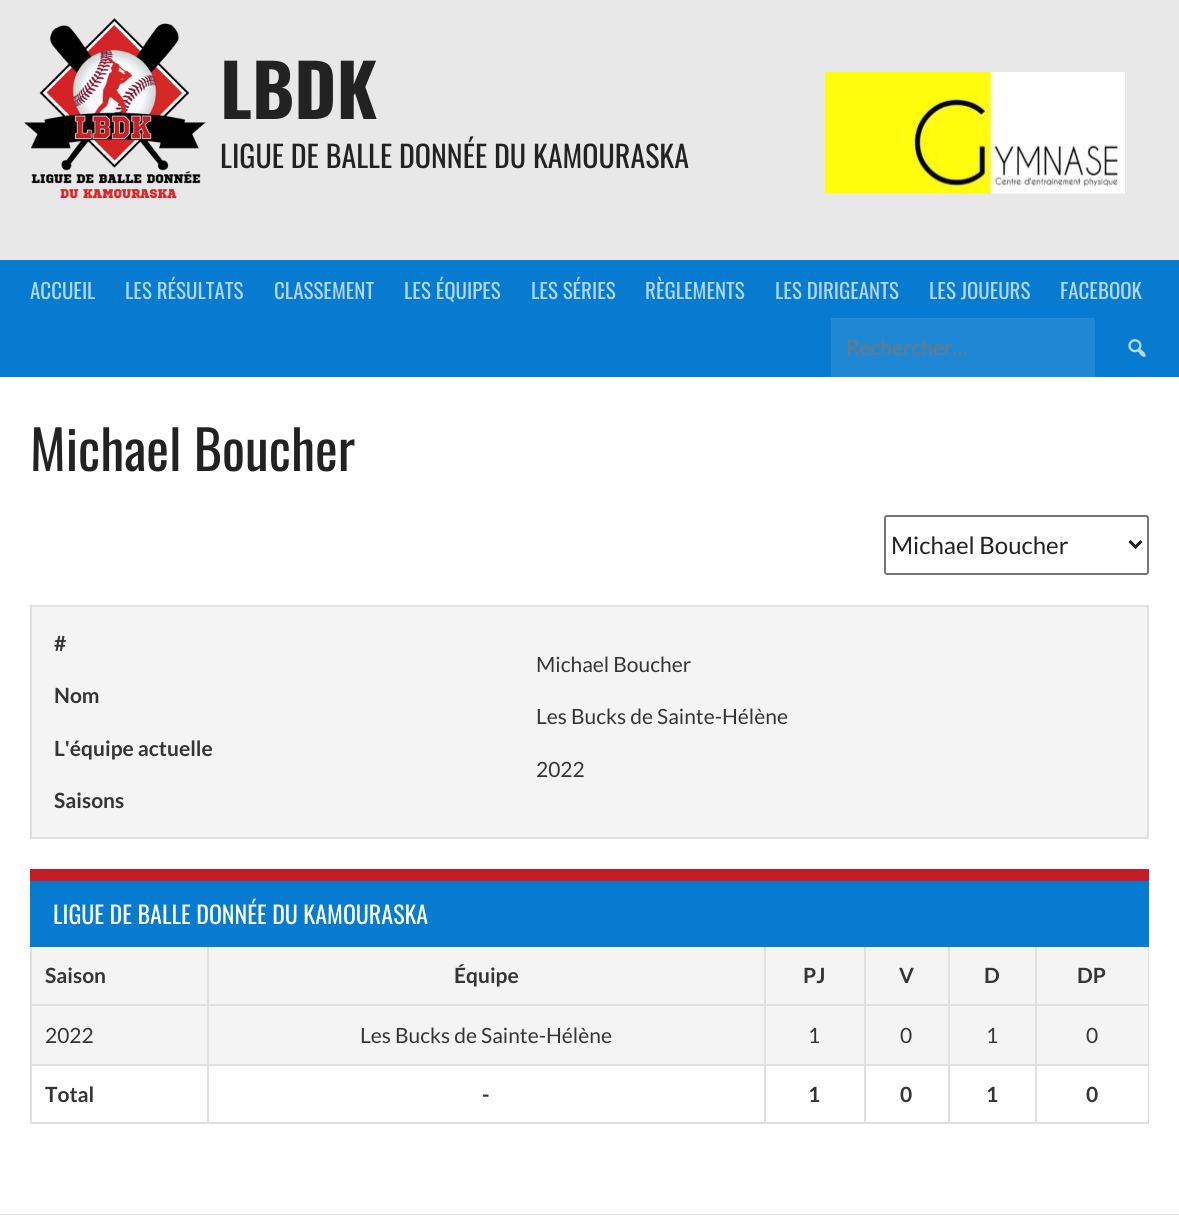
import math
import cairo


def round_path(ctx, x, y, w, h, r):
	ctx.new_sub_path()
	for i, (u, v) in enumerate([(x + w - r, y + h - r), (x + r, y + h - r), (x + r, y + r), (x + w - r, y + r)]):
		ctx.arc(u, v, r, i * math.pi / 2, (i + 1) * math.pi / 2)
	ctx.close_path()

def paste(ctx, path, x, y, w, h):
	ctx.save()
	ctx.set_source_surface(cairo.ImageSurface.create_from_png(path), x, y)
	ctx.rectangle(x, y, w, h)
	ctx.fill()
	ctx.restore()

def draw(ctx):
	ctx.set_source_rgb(0.91, 0.91, 0.91)
	ctx.paint()
	paste(ctx, 'media/1.png', 24, 18, 182, 180)
	ctx.select_font_face('Oswald', cairo.FONT_SLANT_NORMAL, cairo.FONT_WEIGHT_BOLD)
	ctx.set_font_size(72)
	ctx.set_source_rgb(0.133, 0.133, 0.133)
	ctx.move_to(220, 119)
	ctx.show_text('LBDK')
	paste(ctx, 'media/2.png', 825, 72, 300, 122)
	ctx.select_font_face('Oswald')
	ctx.set_font_size(30)
	ctx.move_to(220, 168)
	ctx.show_text('LIGUE DE BALLE DONNÉE DU KAMOURASKA')
	ctx.set_source_rgb(0.024, 0.482, 0.812)
	ctx.rectangle(0, 260, 1179, 117)
	ctx.fill()
	ctx.set_font_size(21)
	ctx.set_source_rgb(0.706, 0.843, 0.945)
	for x, y, s in [
		(30, 299, 'ACCUEIL'),
		(125, 299, 'LES RÉSULTATS'),
		(274, 299, 'CLASSEMENT'),
		(404, 299, 'LES ÉQUIPES'),
		(531, 299, 'LES SÉRIES'),
		(645, 299, 'RÈGLEMENTS'),
		(775, 299, 'LES DIRIGEANTS'),
		(929, 299, 'LES JOUEURS'),
		(1060, 299, 'FACEBOOK'),
	]:
		ctx.move_to(x, y)
		ctx.show_text(s)
	ctx.set_source_rgb(0.122, 0.533, 0.831)
	ctx.rectangle(831, 318, 264, 59)
	ctx.fill()
	ctx.select_font_face('Lato')
	ctx.set_source_rgb(0.459, 0.459, 0.459)
	ctx.move_to(846, 355)
	ctx.show_text('Rechercher…')
	paste(ctx, 'media/3.png', 1128, 339, 18, 18)
	ctx.set_source_rgb(1, 1, 1)
	ctx.rectangle(0, 377, 1179, 837)
	ctx.fill()
	ctx.select_font_face('Oswald')
	ctx.set_font_size(54)
	ctx.set_source_rgb(0.133, 0.133, 0.133)
	ctx.move_to(30, 471)
	ctx.show_text('Michael Boucher')
	round_path(ctx, 885, 516, 263, 58, 2)
	ctx.set_source_rgb(0.463, 0.463, 0.463)
	ctx.stroke()
	ctx.new_path()
	ctx.move_to(1129.5, 541)
	ctx.line_to(1135.5, 547)
	ctx.line_to(1141.5, 541)
	ctx.set_source_rgb(0.133, 0.133, 0.133)
	ctx.set_line_width(3)
	ctx.stroke()
	ctx.select_font_face('Lato')
	ctx.set_font_size(24)
	ctx.move_to(891, 554)
	ctx.show_text('Michael Boucher')
	ctx.set_source_rgb(0.957, 0.957, 0.957)
	ctx.rectangle(31, 606, 1117, 232)
	ctx.fill_preserve()
	ctx.set_source_rgb(0.878, 0.878, 0.878)
	ctx.set_line_width(2)
	ctx.stroke()
	ctx.select_font_face('Lato', cairo.FONT_SLANT_NORMAL, cairo.FONT_WEIGHT_BOLD)
	ctx.set_font_size(21)
	ctx.set_source_rgb(0.208, 0.208, 0.208)
	ctx.move_to(54, 651)
	ctx.show_text('#')
	ctx.select_font_face('Lato')
	ctx.move_to(536, 672)
	ctx.show_text('Michael Boucher')
	ctx.select_font_face('Lato', cairo.FONT_SLANT_NORMAL, cairo.FONT_WEIGHT_BOLD)
	ctx.move_to(54, 703)
	ctx.show_text('Nom')
	ctx.select_font_face('Lato')
	ctx.move_to(536, 724)
	ctx.show_text('Les Bucks de Sainte-Hélène')
	ctx.select_font_face('Lato', cairo.FONT_SLANT_NORMAL, cairo.FONT_WEIGHT_BOLD)
	ctx.move_to(54, 756)
	ctx.show_text('L\'équipe actuelle')
	ctx.select_font_face('Lato')
	ctx.move_to(536, 777)
	ctx.show_text('2022')
	ctx.select_font_face('Lato', cairo.FONT_SLANT_NORMAL, cairo.FONT_WEIGHT_BOLD)
	ctx.move_to(54, 808)
	ctx.show_text('Saisons')
	ctx.set_source_rgb(0.878, 0.878, 0.878)
	ctx.rectangle(1148, 945, 1, 179)
	ctx.rectangle(30, 1122, 1119, 2)
	ctx.rectangle(30, 945, 2, 179)
	ctx.fill()
	ctx.set_source_rgb(0.957, 0.957, 0.957)
	ctx.rectangle(32, 947, 1116, 117)
	ctx.fill()
	ctx.set_source_rgb(0.878, 0.878, 0.878)
	ctx.rectangle(1035, 1004, 114, 2)
	ctx.rectangle(1035, 1064, 114, 2)
	ctx.rectangle(1035, 1064, 2, 60)
	ctx.rectangle(948, 1064, 89, 2)
	ctx.rectangle(1035, 1004, 2, 61)
	ctx.rectangle(948, 1004, 89, 2)
	ctx.rectangle(948, 1064, 2, 60)
	ctx.rectangle(864, 1064, 86, 2)
	ctx.rectangle(948, 1004, 2, 61)
	ctx.rectangle(864, 1004, 86, 2)
	ctx.rectangle(864, 1064, 2, 60)
	ctx.rectangle(764, 1064, 102, 2)
	ctx.rectangle(864, 1004, 2, 61)
	ctx.rectangle(764, 1004, 102, 2)
	ctx.rectangle(764, 1064, 2, 60)
	ctx.rectangle(207, 1064, 558, 2)
	ctx.rectangle(764, 1004, 2, 61)
	ctx.rectangle(207, 1004, 558, 2)
	ctx.rectangle(207, 1064, 2, 60)
	ctx.rectangle(30, 1064, 179, 2)
	ctx.rectangle(207, 1004, 2, 61)
	ctx.rectangle(30, 1004, 179, 2)
	ctx.rectangle(207, 945, 2, 60)
	ctx.rectangle(764, 945, 2, 60)
	ctx.rectangle(864, 945, 2, 60)
	ctx.rectangle(948, 945, 2, 60)
	ctx.rectangle(1035, 945, 2, 60)
	ctx.fill()
	ctx.set_source_rgb(0.024, 0.482, 0.812)
	ctx.rectangle(30, 881, 1119, 66)
	ctx.fill()
	ctx.set_source_rgb(0.773, 0.114, 0.153)
	ctx.rectangle(30, 869, 1119, 12)
	ctx.fill()
	ctx.select_font_face('Oswald')
	ctx.set_font_size(24)
	ctx.set_source_rgb(1, 1, 1)
	ctx.move_to(53, 924)
	ctx.show_text('LIGUE DE BALLE DONNÉE DU KAMOURASKA')
	ctx.select_font_face('Lato', cairo.FONT_SLANT_NORMAL, cairo.FONT_WEIGHT_BOLD)
	ctx.set_font_size(21)
	ctx.set_source_rgb(0.208, 0.208, 0.208)
	for x, y, s in [
		(45, 983, 'Saison'),
		(454, 983, 'Équipe'),
		(803, 983, 'PJ'),
		(899, 983, 'V'),
		(984, 983, 'D'),
		(1077, 983, 'DP'),
	]:
		ctx.move_to(x, y)
		ctx.show_text(s)
	ctx.select_font_face('Lato')
	for x, y, s in [
		(45, 1043, '2022'),
		(360, 1043, 'Les Bucks de Sainte-Hélène'),
		(808, 1043, '1'),
		(900, 1043, '0'),
		(986, 1043, '1'),
		(1086, 1043, '0'),
	]:
		ctx.move_to(x, y)
		ctx.show_text(s)
	ctx.select_font_face('Lato', cairo.FONT_SLANT_NORMAL, cairo.FONT_WEIGHT_BOLD)
	for x, y, s in [
		(45, 1102, 'Total'),
		(482, 1102, '-'),
		(808, 1102, '1'),
		(900, 1102, '0'),
		(986, 1102, '1'),
		(1086, 1102, '0'),
	]:
		ctx.move_to(x, y)
		ctx.show_text(s)
	ctx.set_source_rgb(0.878, 0.878, 0.878)
	ctx.rectangle(0, 1214, 1179, 1)
	ctx.fill()


surface = cairo.ImageSurface(cairo.FORMAT_RGB24, 1179, 1215)
ctx = cairo.Context(surface)
options = cairo.FontOptions()
options.set_hint_metrics(cairo.HINT_METRICS_OFF)
options.set_hint_style(cairo.HINT_STYLE_NONE)
ctx.set_font_options(options)
ctx.set_miter_limit(4)
draw(ctx)
surface.write_to_png('image.png')
